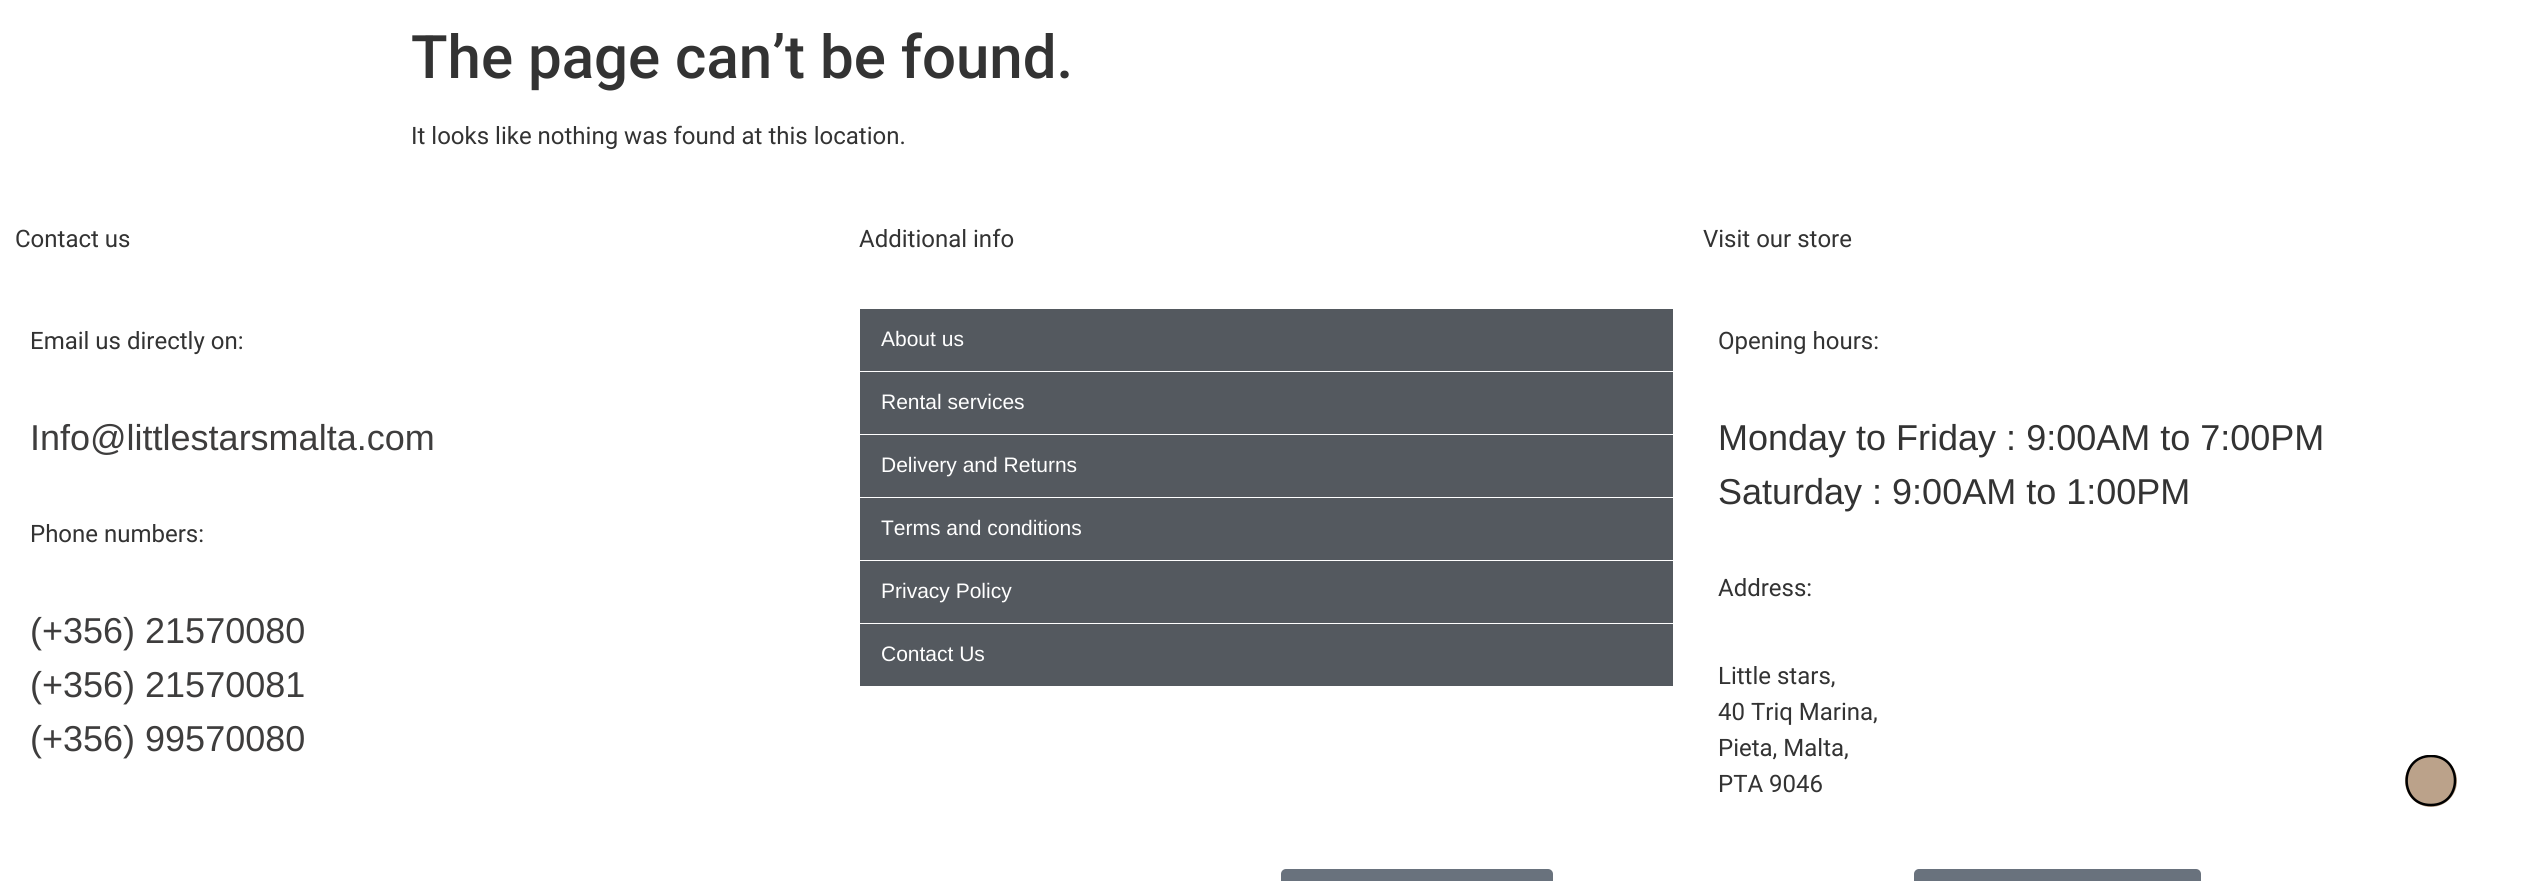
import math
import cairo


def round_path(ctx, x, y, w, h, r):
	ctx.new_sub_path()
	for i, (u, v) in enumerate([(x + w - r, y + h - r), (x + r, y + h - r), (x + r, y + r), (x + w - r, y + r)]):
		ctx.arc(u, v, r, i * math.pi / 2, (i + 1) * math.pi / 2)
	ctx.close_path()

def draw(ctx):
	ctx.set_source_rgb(1, 1, 1)
	ctx.paint()
	ctx.select_font_face('Roboto Medium')
	ctx.set_font_size(60)
	ctx.set_source_rgb(0.2, 0.2, 0.2)
	ctx.move_to(411, 78)
	ctx.show_text('The page can’t be found.')
	ctx.select_font_face('Roboto')
	ctx.set_font_size(24)
	for x, y, s in [
		(411, 144, 'It looks like nothing was found at this location.'),
		(15, 247, 'Contact us'),
		(30, 349, 'Email us directly on:'),
	]:
		ctx.move_to(x, y)
		ctx.show_text(s)
	ctx.select_font_face('Liberation Sans')
	ctx.set_font_size(36)
	ctx.set_source_rgb(0.243, 0.239, 0.239)
	ctx.move_to(30, 450)
	ctx.show_text('Info@littlestarsmalta.com')
	ctx.select_font_face('Roboto')
	ctx.set_font_size(24)
	ctx.set_source_rgb(0.2, 0.2, 0.2)
	ctx.move_to(30, 542)
	ctx.show_text('Phone numbers:')
	ctx.select_font_face('Liberation Sans')
	ctx.set_font_size(36)
	ctx.set_source_rgb(0.243, 0.239, 0.239)
	for x, y, s in [
		(30, 643, '(+356) 21570080'),
		(30, 697, '(+356) 21570081'),
		(30, 751, '(+356) 99570080'),
	]:
		ctx.move_to(x, y)
		ctx.show_text(s)
	ctx.select_font_face('Roboto')
	ctx.set_font_size(24)
	ctx.set_source_rgb(0.2, 0.2, 0.2)
	ctx.move_to(859, 247)
	ctx.show_text('Additional info')
	ctx.set_source_rgb(0.329, 0.349, 0.373)
	ctx.rectangle(860, 309, 813, 62)
	ctx.fill()
	ctx.select_font_face('Liberation Sans')
	ctx.set_font_size(21)
	ctx.set_source_rgb(1, 1, 1)
	ctx.move_to(881, 346)
	ctx.show_text('About us')
	ctx.set_source_rgb(0.329, 0.349, 0.373)
	ctx.rectangle(860, 372, 813, 62)
	ctx.fill()
	ctx.set_source_rgb(1, 1, 1)
	ctx.move_to(881, 409)
	ctx.show_text('Rental services')
	ctx.set_source_rgb(0.329, 0.349, 0.373)
	ctx.rectangle(860, 435, 813, 62)
	ctx.fill()
	ctx.set_source_rgb(1, 1, 1)
	ctx.move_to(881, 472)
	ctx.show_text('Delivery and Returns')
	ctx.set_source_rgb(0.329, 0.349, 0.373)
	ctx.rectangle(860, 498, 813, 62)
	ctx.fill()
	ctx.set_source_rgb(1, 1, 1)
	ctx.move_to(881, 535)
	ctx.show_text('Terms and conditions')
	ctx.set_source_rgb(0.329, 0.349, 0.373)
	ctx.rectangle(860, 561, 813, 62)
	ctx.fill()
	ctx.set_source_rgb(1, 1, 1)
	ctx.move_to(881, 598)
	ctx.show_text('Privacy Policy')
	ctx.set_source_rgb(0.329, 0.349, 0.373)
	ctx.rectangle(860, 624, 813, 62)
	ctx.fill()
	ctx.set_source_rgb(1, 1, 1)
	ctx.move_to(881, 661)
	ctx.show_text('Contact Us')
	ctx.select_font_face('Roboto')
	ctx.set_font_size(24)
	ctx.set_source_rgb(0.2, 0.2, 0.2)
	ctx.move_to(1703, 247)
	ctx.show_text('Visit our store')
	ctx.move_to(1718, 349)
	ctx.show_text('Opening hours:')
	ctx.select_font_face('Liberation Sans')
	ctx.set_font_size(36)
	ctx.move_to(1718, 450)
	ctx.show_text('Monday to Friday : 9:00AM to 7:00PM')
	ctx.move_to(1718, 504)
	ctx.show_text('Saturday : 9:00AM to 1:00PM')
	ctx.select_font_face('Roboto')
	ctx.set_font_size(24)
	for x, y, s in [
		(1718, 596, 'Address:'),
		(1718, 684, 'Little stars,'),
		(1718, 720, '40 Triq Marina,'),
		(1718, 756, 'Pieta, Malta,'),
		(1718, 792, 'PTA 9046'),
	]:
		ctx.move_to(x, y)
		ctx.show_text(s)
	ctx.set_source_rgb(0.412, 0.447, 0.49)
	round_path(ctx, 1281, 869, 272, 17, 5)
	ctx.fill()
	round_path(ctx, 1914, 869, 287, 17, 5)
	ctx.fill()
	ctx.set_source_rgb(0.733, 0.635, 0.541)
	ctx.arc(2431, 781, 22, 0, 2 * math.pi)
	ctx.fill_preserve()
	ctx.set_line_width(8)
	ctx.stroke()
	ctx.save()
	ctx.rectangle(2405, 755, 52, 52)
	ctx.clip()
	ctx.new_path()
	ctx.move_to(2431, 756)
	ctx.curve_to(2463, 756, 2463, 805, 2431, 805)
	ctx.curve_to(2398.5, 805.5, 2398.5, 756, 2431, 756)
	ctx.set_source_rgb(0, 0, 0)
	ctx.set_line_width(2.5)
	ctx.stroke()
	ctx.restore()


surface = cairo.ImageSurface(cairo.FORMAT_RGB24, 2532, 881)
ctx = cairo.Context(surface)
options = cairo.FontOptions()
options.set_hint_metrics(cairo.HINT_METRICS_OFF)
options.set_hint_style(cairo.HINT_STYLE_NONE)
ctx.set_font_options(options)
ctx.set_miter_limit(4)
draw(ctx)
surface.write_to_png('image.png')
